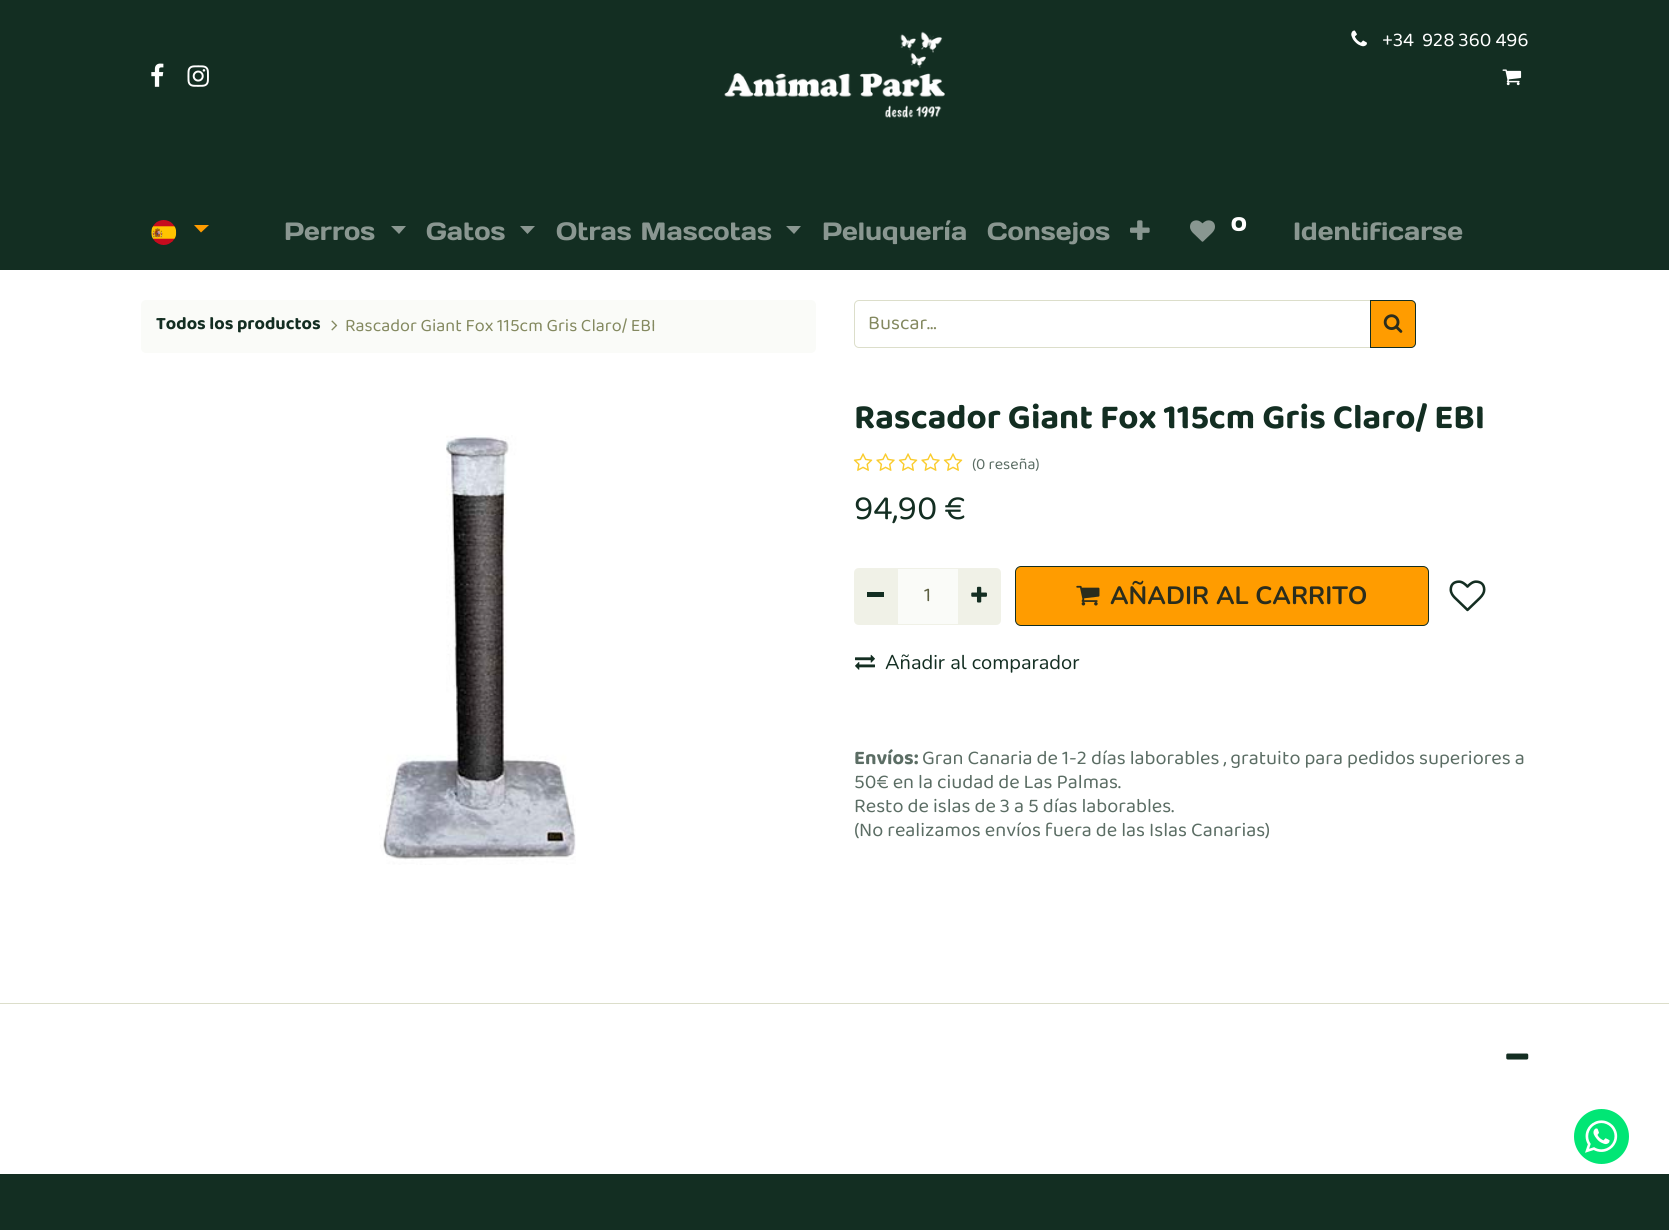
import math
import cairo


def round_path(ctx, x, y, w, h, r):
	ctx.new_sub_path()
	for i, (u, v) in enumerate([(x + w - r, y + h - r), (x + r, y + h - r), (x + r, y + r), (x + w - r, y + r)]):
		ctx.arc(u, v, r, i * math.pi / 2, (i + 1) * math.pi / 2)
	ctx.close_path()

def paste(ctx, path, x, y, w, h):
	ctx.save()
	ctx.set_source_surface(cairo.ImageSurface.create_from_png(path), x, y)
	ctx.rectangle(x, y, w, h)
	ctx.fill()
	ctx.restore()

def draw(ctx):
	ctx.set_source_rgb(1, 1, 1)
	ctx.paint()
	ctx.set_source_rgb(0.078, 0.18, 0.133)
	ctx.rectangle(0, 0, 1669, 270)
	ctx.fill()
	paste(ctx, 'media/1.png', 724, 31, 221, 87)
	paste(ctx, 'media/2.png', 1351, 30, 16, 17)
	ctx.select_font_face('Baloo 2')
	ctx.set_font_size(20)
	ctx.set_source_rgb(1, 1, 1)
	ctx.move_to(1382, 46)
	ctx.show_text('+34  928 360 496')
	paste(ctx, 'media/3.png', 1502, 69, 20, 17)
	paste(ctx, 'media/4.png', 151, 63, 13, 24)
	paste(ctx, 'media/5.png', 187, 65, 22, 22)
	paste(ctx, 'media/6.png', 151, 220, 26, 25)
	ctx.set_source_rgb(1, 0.612, 0)
	ctx.new_path()
	ctx.move_to(194, 225)
	ctx.line_to(209, 225)
	ctx.line_to(201, 232.5)
	ctx.close_path()
	ctx.fill()
	ctx.select_font_face('Days One')
	ctx.set_font_size(25)
	ctx.set_source_rgb(0.541, 0.592, 0.569)
	ctx.move_to(284, 240)
	ctx.show_text('Perros')
	ctx.new_path()
	ctx.move_to(391, 226)
	ctx.line_to(406, 226)
	ctx.line_to(399, 234)
	ctx.close_path()
	ctx.fill()
	ctx.move_to(426, 240)
	ctx.show_text('Gatos')
	ctx.new_path()
	ctx.move_to(520, 226)
	ctx.line_to(535, 226)
	ctx.line_to(527.5, 234)
	ctx.close_path()
	ctx.fill()
	ctx.move_to(556, 240)
	ctx.show_text('Otras Mascotas')
	ctx.new_path()
	ctx.move_to(786, 226)
	ctx.line_to(801, 226)
	ctx.line_to(794, 234)
	ctx.close_path()
	ctx.fill()
	ctx.move_to(822, 240)
	ctx.show_text('Peluquería')
	ctx.move_to(987, 240)
	ctx.show_text('Consejos')
	paste(ctx, 'media/7.png', 1130, 220, 20, 20)
	paste(ctx, 'media/8.png', 1190, 220, 25, 22)
	ctx.select_font_face('Days One', cairo.FONT_SLANT_NORMAL, cairo.FONT_WEIGHT_BOLD)
	ctx.set_font_size(19)
	ctx.set_source_rgb(1, 1, 1)
	ctx.move_to(1231, 231)
	ctx.show_text('0')
	ctx.select_font_face('Days One')
	ctx.set_font_size(25)
	ctx.set_source_rgb(0.541, 0.592, 0.569)
	ctx.move_to(1293, 240)
	ctx.show_text('Identificarse')
	ctx.set_source_rgb(0.98, 0.984, 0.969)
	round_path(ctx, 141, 300, 675, 53, 5)
	ctx.fill()
	ctx.select_font_face('Baloo 2', cairo.FONT_SLANT_NORMAL, cairo.FONT_WEIGHT_BOLD)
	ctx.set_font_size(18)
	ctx.set_source_rgb(0.078, 0.18, 0.133)
	ctx.move_to(156, 329)
	ctx.show_text('Todos los productos')
	paste(ctx, 'media/9.png', 331, 320, 7, 11)
	ctx.select_font_face('Baloo 2')
	ctx.set_source_rgb(0.518, 0.537, 0.376)
	ctx.move_to(345, 331)
	ctx.show_text('Rascador Giant Fox 115cm Gris Claro/ EBI')
	ctx.new_path()
	ctx.move_to(859, 300.5)
	ctx.line_to(1370.5, 300.5)
	ctx.line_to(1370.5, 347.5)
	ctx.line_to(859, 347.5)
	ctx.curve_to(856.5, 347.5, 854.5, 345.5, 854.5, 343)
	ctx.line_to(854.5, 305)
	ctx.curve_to(854.5, 302.5, 856.5, 300.5, 859, 300.5)
	ctx.close_path()
	ctx.set_source_rgb(0.863, 0.871, 0.792)
	ctx.set_line_width(1)
	ctx.stroke()
	ctx.set_font_size(20)
	ctx.set_source_rgb(0.518, 0.537, 0.376)
	ctx.move_to(868, 329)
	ctx.show_text('Buscar…')
	ctx.set_source_rgb(1, 0.612, 0)
	ctx.new_path()
	ctx.move_to(1370.5, 300.5)
	ctx.line_to(1411, 300.5)
	ctx.curve_to(1413.5, 300.5, 1415.5, 302.5, 1415.5, 305)
	ctx.line_to(1415.5, 343)
	ctx.curve_to(1415.5, 345.5, 1413.5, 347.5, 1411, 347.5)
	ctx.line_to(1370.5, 347.5)
	ctx.close_path()
	ctx.fill_preserve()
	ctx.set_source_rgb(0.078, 0.18, 0.133)
	ctx.stroke()
	paste(ctx, 'media/10.png', 1383, 314, 20, 19)
	paste(ctx, 'media/11.png', 379, 435, 197, 430)
	ctx.select_font_face('Baloo 2', cairo.FONT_SLANT_NORMAL, cairo.FONT_WEIGHT_BOLD)
	ctx.set_font_size(35)
	ctx.move_to(854, 428)
	ctx.show_text('Rascador Giant Fox 115cm Gris Claro/ EBI')
	paste(ctx, 'media/12.png', 853, 453, 20, 18)
	paste(ctx, 'media/13.png', 876, 453, 19, 18)
	paste(ctx, 'media/12.png', 898, 453, 20, 18)
	paste(ctx, 'media/13.png', 921, 453, 19, 18)
	paste(ctx, 'media/12.png', 943, 453, 20, 18)
	ctx.select_font_face('Baloo 2')
	ctx.set_font_size(16)
	ctx.set_source_rgb(0.357, 0.427, 0.392)
	ctx.move_to(972, 469)
	ctx.show_text('(0 reseña)')
	ctx.set_font_size(35)
	ctx.set_source_rgb(0.078, 0.18, 0.133)
	ctx.move_to(854, 519)
	ctx.show_text('94,90 €')
	ctx.set_source_rgb(0.98, 0.984, 0.969)
	ctx.rectangle(898, 569, 60, 55)
	ctx.fill()
	ctx.rectangle(896.5, 568.5, 62, 56)
	ctx.set_source_rgb(0.941, 0.945, 0.906)
	ctx.stroke()
	ctx.new_path()
	ctx.move_to(859, 568)
	ctx.line_to(898, 568)
	ctx.line_to(898, 625)
	ctx.line_to(859, 625)
	ctx.curve_to(856, 625, 854, 623, 854, 620)
	ctx.line_to(854, 573)
	ctx.curve_to(854, 570, 856, 568, 859, 568)
	ctx.close_path()
	ctx.fill()
	ctx.set_source_rgb(0.078, 0.18, 0.133)
	ctx.rectangle(867, 592, 17, 5)
	ctx.fill()
	ctx.set_font_size(20)
	ctx.set_source_rgb(0.361, 0.373, 0.255)
	ctx.move_to(924, 601)
	ctx.show_text('1')
	ctx.set_source_rgb(0.941, 0.945, 0.906)
	ctx.new_path()
	ctx.move_to(958, 568)
	ctx.line_to(996, 568)
	ctx.curve_to(999, 568, 1001, 570, 1001, 573)
	ctx.line_to(1001, 620)
	ctx.curve_to(1001, 623, 999, 625, 996, 625)
	ctx.line_to(958, 625)
	ctx.close_path()
	ctx.fill()
	paste(ctx, 'media/14.png', 971, 586, 16, 17)
	ctx.set_source_rgb(1, 0.612, 0)
	round_path(ctx, 1015.5, 566.5, 413, 59, 5.5)
	ctx.fill_preserve()
	ctx.set_source_rgb(0.078, 0.18, 0.133)
	ctx.stroke()
	paste(ctx, 'media/15.png', 1076, 585, 24, 21)
	ctx.select_font_face('Nunito', cairo.FONT_SLANT_NORMAL, cairo.FONT_WEIGHT_BOLD)
	ctx.set_font_size(25)
	ctx.set_source_rgb(0.169, 0.176, 0.114)
	ctx.move_to(1110, 604)
	ctx.show_text('AÑADIR AL CARRITO')
	paste(ctx, 'media/16.png', 1449, 580, 37, 32)
	paste(ctx, 'media/17.png', 855, 654, 20, 16)
	ctx.select_font_face('Nunito')
	ctx.set_font_size(20)
	ctx.set_source_rgb(0.078, 0.18, 0.133)
	ctx.move_to(885, 669)
	ctx.show_text('Añadir al comparador')
	ctx.select_font_face('Baloo 2', cairo.FONT_SLANT_NORMAL, cairo.FONT_WEIGHT_BOLD)
	ctx.set_source_rgb(0.357, 0.427, 0.392)
	ctx.move_to(854, 764)
	ctx.show_text('Envíos:')
	ctx.select_font_face('Baloo 2')
	for x, y, s in [
		(922, 764, 'Gran Canaria de 1-2 días laborables , gratuito para pedidos superiores a'),
		(854, 788, '50€ en la ciudad de Las Palmas.'),
		(854, 812, 'Resto de islas de 3 a 5 días laborables.'),
		(854, 836, '(No realizamos envíos fuera de las Islas Canarias)'),
	]:
		ctx.move_to(x, y)
		ctx.show_text(s)
	ctx.set_source_rgb(0.863, 0.871, 0.792)
	ctx.rectangle(0, 1003, 1669, 1)
	ctx.fill()
	paste(ctx, 'media/18.png', 1506, 1053, 23, 7)
	ctx.set_source_rgb(0.078, 0.18, 0.133)
	ctx.rectangle(0, 1174, 1669, 56)
	ctx.fill()
	ctx.set_source_rgb(0.004, 0.902, 0.459)
	ctx.arc(1601.5, 1136.5, 29.5, 0, 2 * math.pi)
	ctx.fill_preserve()
	ctx.set_source_rgb(1, 1, 1)
	ctx.set_line_width(4)
	ctx.stroke()
	paste(ctx, 'media/19.png', 1585, 1120, 33, 33)


surface = cairo.ImageSurface(cairo.FORMAT_RGB24, 1669, 1230)
ctx = cairo.Context(surface)
options = cairo.FontOptions()
options.set_hint_metrics(cairo.HINT_METRICS_OFF)
options.set_hint_style(cairo.HINT_STYLE_NONE)
ctx.set_font_options(options)
ctx.set_miter_limit(4)
draw(ctx)
surface.write_to_png('image.png')
